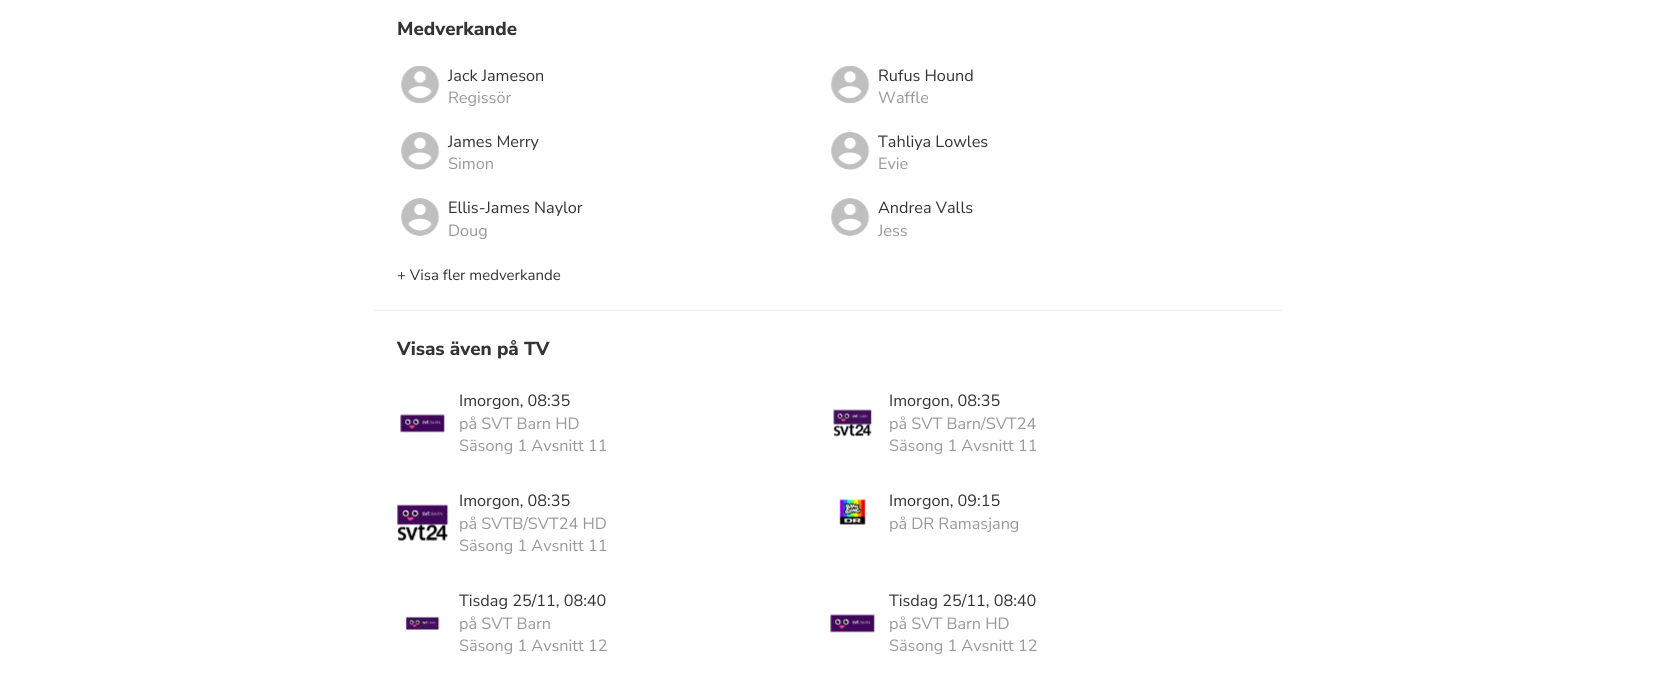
import math
import cairo


def paste(ctx, path, x, y, w, h):
	ctx.save()
	ctx.set_source_surface(cairo.ImageSurface.create_from_png(path), x, y)
	ctx.rectangle(x, y, w, h)
	ctx.fill()
	ctx.restore()

def draw(ctx):
	ctx.set_source_rgb(1, 1, 1)
	ctx.paint()
	ctx.select_font_face('Nunito Sans ExtraBold')
	ctx.set_font_size(18.75)
	ctx.set_source_rgb(0.2, 0.2, 0.2)
	ctx.move_to(397, 35)
	ctx.show_text('Medverkande')
	paste(ctx, 'media/1.png', 401, 65, 39, 39)
	ctx.select_font_face('Nunito Sans')
	ctx.set_font_size(16.25)
	ctx.move_to(448, 81)
	ctx.show_text('Jack Jameson')
	ctx.set_source_rgb(0.6, 0.6, 0.6)
	ctx.move_to(448, 103)
	ctx.show_text('Regissör')
	paste(ctx, 'media/1.png', 831, 65, 39, 39)
	ctx.set_source_rgb(0.2, 0.2, 0.2)
	ctx.move_to(878, 81)
	ctx.show_text('Rufus Hound')
	ctx.set_source_rgb(0.6, 0.6, 0.6)
	ctx.move_to(878, 103)
	ctx.show_text('Waffle')
	paste(ctx, 'media/2.png', 401, 132, 39, 38)
	ctx.set_source_rgb(0.2, 0.2, 0.2)
	ctx.move_to(448, 147)
	ctx.show_text('James Merry')
	ctx.set_source_rgb(0.6, 0.6, 0.6)
	ctx.move_to(448, 169)
	ctx.show_text('Simon')
	paste(ctx, 'media/2.png', 831, 132, 39, 38)
	ctx.set_source_rgb(0.2, 0.2, 0.2)
	ctx.move_to(878, 147)
	ctx.show_text('Tahliya Lowles')
	ctx.set_source_rgb(0.6, 0.6, 0.6)
	ctx.move_to(878, 169)
	ctx.show_text('Evie')
	paste(ctx, 'media/3.png', 401, 198, 39, 38)
	ctx.set_source_rgb(0.2, 0.2, 0.2)
	ctx.move_to(448, 213)
	ctx.show_text('Ellis-James Naylor')
	ctx.set_source_rgb(0.6, 0.6, 0.6)
	ctx.move_to(448, 236)
	ctx.show_text('Doug')
	paste(ctx, 'media/3.png', 831, 198, 39, 38)
	ctx.set_source_rgb(0.2, 0.2, 0.2)
	ctx.move_to(878, 213)
	ctx.show_text('Andrea Valls')
	ctx.set_source_rgb(0.6, 0.6, 0.6)
	ctx.move_to(878, 236)
	ctx.show_text('Jess')
	ctx.set_font_size(15)
	ctx.set_source_rgb(0.2, 0.2, 0.2)
	ctx.move_to(397, 280)
	ctx.show_text('+ Visa fler medverkande')
	ctx.set_source_rgb(0.933, 0.933, 0.933)
	ctx.rectangle(373, 310, 910, 1)
	ctx.fill()
	ctx.select_font_face('Nunito Sans ExtraBold')
	ctx.set_font_size(18.75)
	ctx.set_source_rgb(0.2, 0.2, 0.2)
	ctx.move_to(397, 355)
	ctx.show_text('Visas även på TV')
	paste(ctx, 'media/4.png', 400, 414, 45, 19)
	ctx.select_font_face('Nunito Sans')
	ctx.set_font_size(16.25)
	ctx.move_to(459, 406)
	ctx.show_text('Imorgon, 08:35')
	ctx.set_source_rgb(0.6, 0.6, 0.6)
	ctx.move_to(459, 429)
	ctx.show_text('på SVT Barn HD')
	ctx.move_to(459, 451)
	ctx.show_text('Säsong 1 Avsnitt 11')
	paste(ctx, 'media/5.png', 833, 409, 39, 28)
	ctx.set_source_rgb(0.2, 0.2, 0.2)
	ctx.move_to(889, 406)
	ctx.show_text('Imorgon, 08:35')
	ctx.set_source_rgb(0.6, 0.6, 0.6)
	ctx.move_to(889, 429)
	ctx.show_text('på SVT Barn/SVT24')
	ctx.move_to(889, 451)
	ctx.show_text('Säsong 1 Avsnitt 11')
	paste(ctx, 'media/6.png', 397, 504, 52, 37)
	ctx.set_source_rgb(0.2, 0.2, 0.2)
	ctx.move_to(459, 506)
	ctx.show_text('Imorgon, 08:35')
	ctx.set_source_rgb(0.6, 0.6, 0.6)
	ctx.move_to(459, 529)
	ctx.show_text('på SVTB/SVT24 HD')
	ctx.move_to(459, 551)
	ctx.show_text('Säsong 1 Avsnitt 11')
	paste(ctx, 'media/7.png', 839, 499, 27, 26)
	ctx.set_source_rgb(0.2, 0.2, 0.2)
	ctx.move_to(889, 506)
	ctx.show_text('Imorgon, 09:15')
	ctx.set_source_rgb(0.6, 0.6, 0.6)
	ctx.move_to(889, 529)
	ctx.show_text('på DR Ramasjang')
	paste(ctx, 'media/8.png', 406, 616, 34, 14)
	ctx.set_source_rgb(0.2, 0.2, 0.2)
	ctx.move_to(459, 606)
	ctx.show_text('Tisdag 25/11, 08:40')
	ctx.set_source_rgb(0.6, 0.6, 0.6)
	ctx.move_to(459, 629)
	ctx.show_text('på SVT Barn')
	ctx.move_to(459, 651)
	ctx.show_text('Säsong 1 Avsnitt 12')
	paste(ctx, 'media/4.png', 830, 614, 45, 19)
	ctx.set_source_rgb(0.2, 0.2, 0.2)
	ctx.move_to(889, 606)
	ctx.show_text('Tisdag 25/11, 08:40')
	ctx.set_source_rgb(0.6, 0.6, 0.6)
	ctx.move_to(889, 629)
	ctx.show_text('på SVT Barn HD')
	ctx.move_to(889, 651)
	ctx.show_text('Säsong 1 Avsnitt 12')


surface = cairo.ImageSurface(cairo.FORMAT_RGB24, 1653, 687)
ctx = cairo.Context(surface)
options = cairo.FontOptions()
options.set_hint_metrics(cairo.HINT_METRICS_OFF)
options.set_hint_style(cairo.HINT_STYLE_NONE)
ctx.set_font_options(options)
ctx.set_miter_limit(4)
draw(ctx)
surface.write_to_png('image.png')
